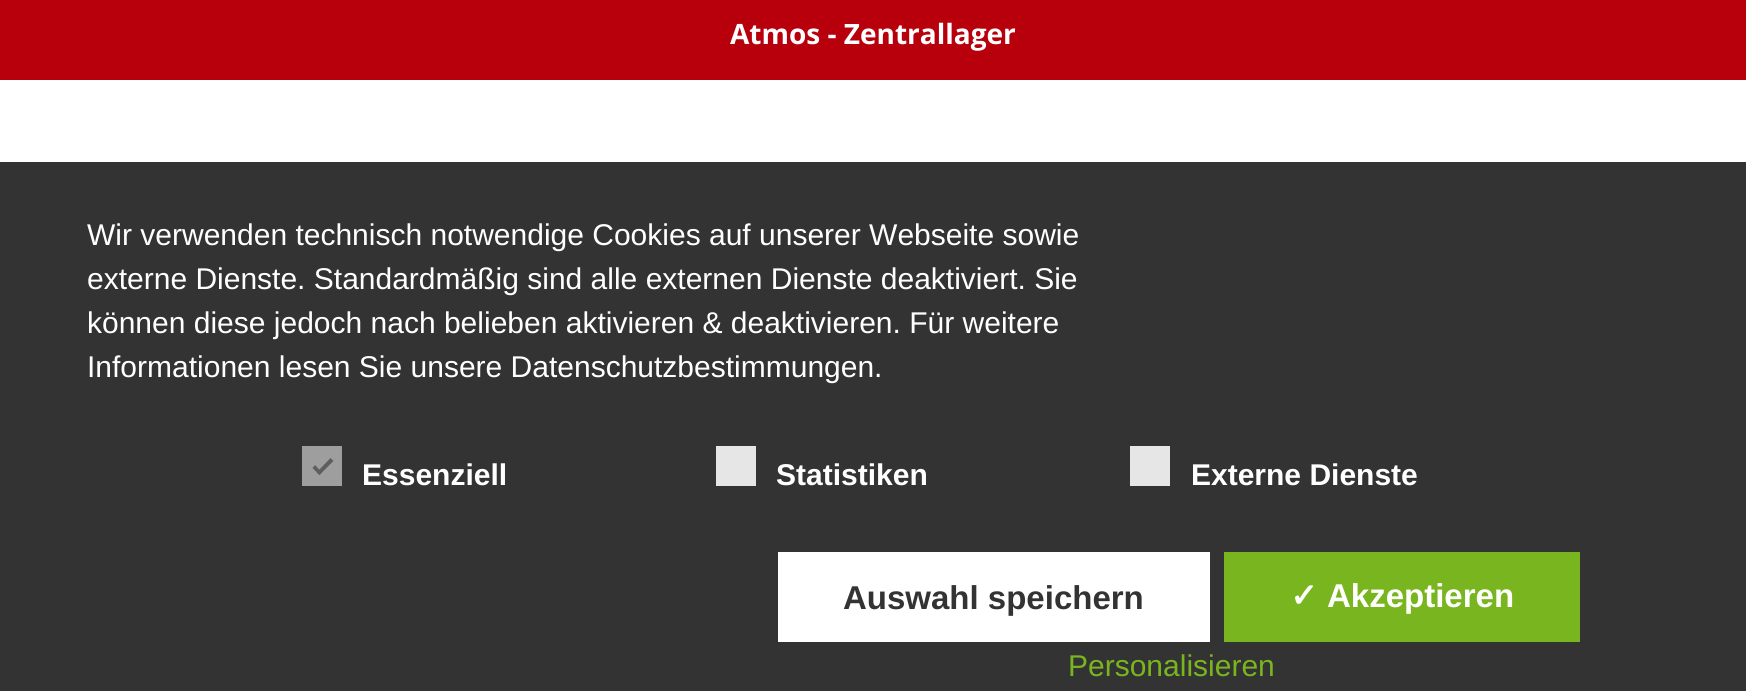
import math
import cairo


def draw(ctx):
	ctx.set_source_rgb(1, 1, 1)
	ctx.paint()
	ctx.set_source_rgb(0.722, 0, 0.047)
	ctx.rectangle(0, 0, 1746, 80)
	ctx.fill()
	ctx.select_font_face('Open Sans', cairo.FONT_SLANT_NORMAL, cairo.FONT_WEIGHT_BOLD)
	ctx.set_font_size(28)
	ctx.set_source_rgb(1, 1, 1)
	ctx.move_to(730, 44)
	ctx.show_text('Atmos - Zentrallager')
	ctx.set_source_rgb(0.2, 0.2, 0.2)
	ctx.rectangle(0, 162, 1746, 529)
	ctx.fill()
	ctx.select_font_face('Liberation Sans')
	ctx.set_font_size(30)
	ctx.set_source_rgb(1, 1, 1)
	for x, y, s in [
		(87, 245, 'Wir verwenden technisch notwendige Cookies auf unserer Webseite sowie'),
		(87, 289, 'externe Dienste. Standardmäßig sind alle externen Dienste deaktiviert. Sie'),
		(87, 333, 'können diese jedoch nach belieben aktivieren & deaktivieren. Für weitere'),
		(87, 377, 'Informationen lesen Sie unsere Datenschutzbestimmungen.'),
	]:
		ctx.move_to(x, y)
		ctx.show_text(s)
	ctx.set_source_rgb(0.62, 0.62, 0.62)
	ctx.rectangle(302, 446, 40, 40)
	ctx.fill()
	ctx.set_source_rgb(0.369, 0.369, 0.369)
	ctx.new_path()
	ctx.move_to(330.5, 458)
	ctx.line_to(333.5, 461)
	ctx.line_to(319.5, 475)
	ctx.line_to(316.5, 472.5)
	ctx.close_path()
	ctx.fill()
	ctx.new_path()
	ctx.move_to(315, 465)
	ctx.line_to(322, 472.5)
	ctx.line_to(319.5, 475)
	ctx.line_to(312.5, 468)
	ctx.close_path()
	ctx.fill()
	ctx.select_font_face('Liberation Sans', cairo.FONT_SLANT_NORMAL, cairo.FONT_WEIGHT_BOLD)
	ctx.set_source_rgb(1, 1, 1)
	ctx.move_to(362, 485)
	ctx.show_text('Essenziell')
	ctx.set_source_rgb(0.902, 0.902, 0.902)
	ctx.rectangle(716, 446, 40, 40)
	ctx.fill()
	ctx.set_source_rgb(1, 1, 1)
	ctx.move_to(776, 485)
	ctx.show_text('Statistiken')
	ctx.set_source_rgb(0.902, 0.902, 0.902)
	ctx.rectangle(1130, 446, 40, 40)
	ctx.fill()
	ctx.set_source_rgb(1, 1, 1)
	ctx.move_to(1191, 485)
	ctx.show_text('Externe Dienste')
	ctx.rectangle(778, 552, 432, 90)
	ctx.fill()
	ctx.set_font_size(33)
	ctx.set_source_rgb(0.2, 0.2, 0.2)
	ctx.move_to(843, 609)
	ctx.show_text('Auswahl speichern')
	ctx.set_source_rgb(0.475, 0.71, 0.122)
	ctx.rectangle(1224, 552, 356, 90)
	ctx.fill()
	ctx.select_font_face('DejaVu Sans', cairo.FONT_SLANT_NORMAL, cairo.FONT_WEIGHT_BOLD)
	ctx.set_source_rgb(1, 1, 1)
	ctx.move_to(1290, 607)
	ctx.show_text('✓')
	ctx.select_font_face('Liberation Sans', cairo.FONT_SLANT_NORMAL, cairo.FONT_WEIGHT_BOLD)
	ctx.move_to(1327, 607)
	ctx.show_text('Akzeptieren')
	ctx.select_font_face('Liberation Sans')
	ctx.set_font_size(30)
	ctx.set_source_rgb(0.475, 0.71, 0.122)
	ctx.move_to(1068, 676)
	ctx.show_text('Personalisieren')


surface = cairo.ImageSurface(cairo.FORMAT_RGB24, 1746, 691)
ctx = cairo.Context(surface)
options = cairo.FontOptions()
options.set_hint_metrics(cairo.HINT_METRICS_OFF)
options.set_hint_style(cairo.HINT_STYLE_NONE)
ctx.set_font_options(options)
ctx.set_miter_limit(4)
draw(ctx)
surface.write_to_png('image.png')
